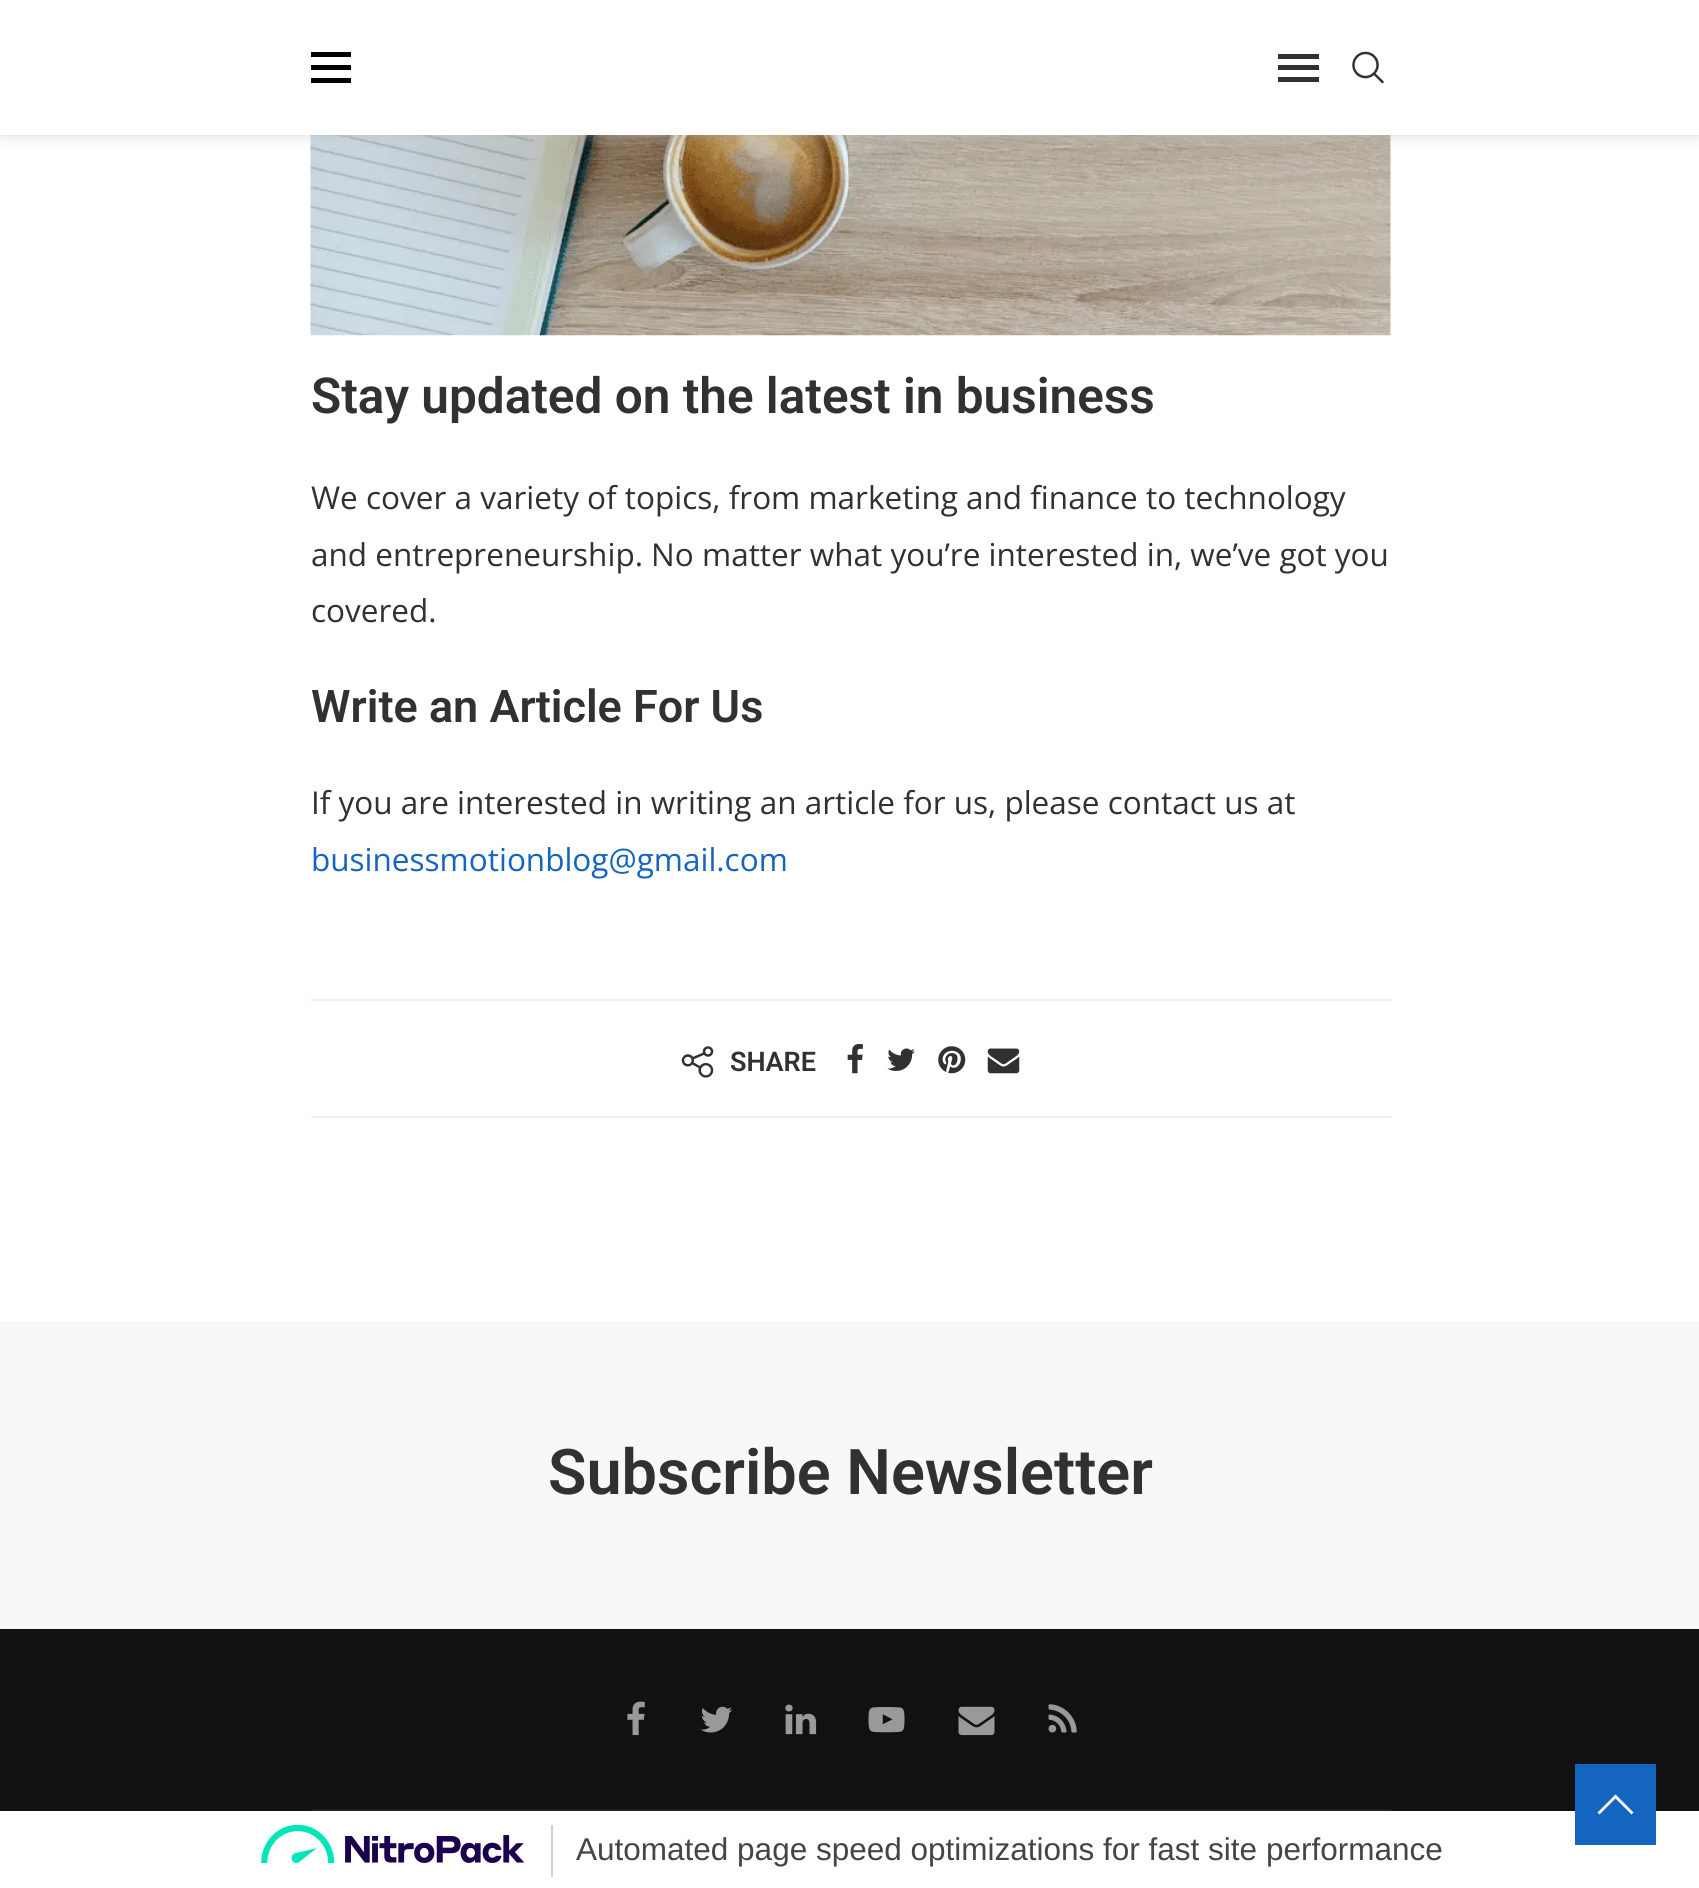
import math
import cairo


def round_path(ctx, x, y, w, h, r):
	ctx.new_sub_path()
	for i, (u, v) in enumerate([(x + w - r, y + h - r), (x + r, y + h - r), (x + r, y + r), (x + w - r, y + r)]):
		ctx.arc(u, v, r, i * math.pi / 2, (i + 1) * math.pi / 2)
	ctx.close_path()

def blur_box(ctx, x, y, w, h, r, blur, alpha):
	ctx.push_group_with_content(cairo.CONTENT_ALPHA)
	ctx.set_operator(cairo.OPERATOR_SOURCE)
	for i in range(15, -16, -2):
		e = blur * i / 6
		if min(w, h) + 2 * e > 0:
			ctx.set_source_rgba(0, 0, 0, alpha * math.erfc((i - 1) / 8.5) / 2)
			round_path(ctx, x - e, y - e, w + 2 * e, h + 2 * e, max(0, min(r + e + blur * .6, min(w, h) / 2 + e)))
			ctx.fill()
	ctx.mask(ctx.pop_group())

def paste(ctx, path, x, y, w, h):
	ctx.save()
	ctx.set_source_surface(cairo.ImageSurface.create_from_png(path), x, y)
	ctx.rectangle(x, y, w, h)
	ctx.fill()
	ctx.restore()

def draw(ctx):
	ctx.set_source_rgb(1, 1, 1)
	ctx.paint()
	paste(ctx, 'media/2.png', 310, 135, 1081, 201)
	ctx.set_source_rgb(0.745, 0.745, 0.745)
	blur_box(ctx, 0, 2, 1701, 135, 0, 5.5, 0.46)
	ctx.set_source_rgb(1, 1, 1)
	ctx.rectangle(0, 0, 1699, 135)
	ctx.fill()
	ctx.set_source_rgb(0, 0, 0)
	ctx.rectangle(311, 52, 40, 5)
	ctx.rectangle(311, 65, 40, 5)
	ctx.rectangle(311, 78, 40, 5)
	ctx.fill()
	ctx.set_source_rgb(0.192, 0.192, 0.192)
	ctx.rectangle(1278, 54, 41, 5)
	ctx.rectangle(1278, 77, 41, 5)
	ctx.rectangle(1278, 65, 41, 5)
	ctx.fill()
	paste(ctx, 'media/1.png', 1352, 51, 32, 33)
	ctx.select_font_face('Roboto SemiBold')
	ctx.set_font_size(49.5)
	ctx.move_to(311, 413)
	ctx.show_text('Stay updated on the latest in business')
	ctx.select_font_face('Open Sans')
	ctx.set_font_size(31.5)
	for x, y, s in [
		(311, 509, 'We cover a variety of topics, from marketing and finance to technology'),
		(311, 566, 'and entrepreneurship. No matter what you’re interested in, we’ve got you'),
		(311, 622, 'covered.'),
	]:
		ctx.move_to(x, y)
		ctx.show_text(s)
	ctx.select_font_face('Roboto SemiBold')
	ctx.set_font_size(45)
	ctx.move_to(311, 722)
	ctx.show_text('Write an Article For Us')
	ctx.select_font_face('Open Sans')
	ctx.set_font_size(31.5)
	ctx.move_to(311, 814)
	ctx.show_text('If you are interested in writing an article for us, please contact us at')
	ctx.set_source_rgb(0.082, 0.396, 0.753)
	ctx.move_to(311, 871)
	ctx.show_text('businessmotionblog@gmail.com')
	ctx.set_source_rgb(0.933, 0.933, 0.933)
	ctx.rectangle(311, 999, 1080, 2)
	ctx.fill()
	ctx.rectangle(311, 1116, 1080, 2)
	ctx.fill()
	paste(ctx, 'media/3.png', 681, 1046, 33, 32)
	ctx.select_font_face('Roboto SemiBold')
	ctx.set_font_size(27)
	ctx.set_source_rgb(0.192, 0.192, 0.192)
	ctx.move_to(730, 1071)
	ctx.show_text('SHARE')
	paste(ctx, 'media/4.png', 847, 1044, 16, 30)
	paste(ctx, 'media/5.png', 887, 1048, 28, 23)
	paste(ctx, 'media/6.png', 938, 1046, 28, 28)
	paste(ctx, 'media/7.png', 987, 1048, 33, 26)
	ctx.set_source_rgb(0.969, 0.969, 0.969)
	ctx.rectangle(0, 1321, 1699, 308)
	ctx.fill()
	ctx.set_font_size(63)
	ctx.set_source_rgb(0.192, 0.192, 0.192)
	ctx.move_to(548, 1494)
	ctx.show_text('Subscribe Newsletter')
	ctx.set_source_rgb(0.067, 0.067, 0.067)
	ctx.rectangle(0, 1629, 1699, 182)
	ctx.fill()
	ctx.set_source_rgb(0.129, 0.129, 0.129)
	ctx.rectangle(311, 1809, 1080, 2)
	ctx.fill()
	paste(ctx, 'media/8.png', 627, 1701, 18, 35)
	paste(ctx, 'media/9.png', 700, 1706, 32, 27)
	paste(ctx, 'media/10.png', 785, 1704, 32, 31)
	paste(ctx, 'media/11.png', 868, 1707, 37, 26)
	paste(ctx, 'media/12.png', 958, 1706, 37, 30)
	paste(ctx, 'media/13.png', 1048, 1704, 29, 29)
	ctx.set_source_rgb(0.082, 0.396, 0.753)
	ctx.rectangle(1575, 1764, 81, 81)
	ctx.fill()
	ctx.set_source_rgb(1, 1, 1)
	ctx.new_path()
	ctx.move_to(1615.5, 1794.5)
	ctx.line_to(1597.5, 1812.5)
	ctx.line_to(1599.5, 1814.5)
	ctx.line_to(1615.5, 1798.5)
	ctx.line_to(1631.5, 1814.5)
	ctx.line_to(1633.5, 1812.5)
	ctx.close_path()
	ctx.fill()
	ctx.set_source_rgb(0.82, 0.82, 0.82)
	ctx.rectangle(551, 1825, 2, 52)
	ctx.fill()
	paste(ctx, 'media/14.png', 261, 1825, 264, 38)
	ctx.select_font_face('Liberation Sans')
	ctx.set_font_size(31.5)
	ctx.set_source_rgb(0.271, 0.271, 0.271)
	ctx.move_to(576, 1860)
	ctx.show_text('Automated page speed optimizations for fast site performance')


surface = cairo.ImageSurface(cairo.FORMAT_RGB24, 1699, 1888)
ctx = cairo.Context(surface)
options = cairo.FontOptions()
options.set_hint_metrics(cairo.HINT_METRICS_OFF)
options.set_hint_style(cairo.HINT_STYLE_NONE)
ctx.set_font_options(options)
ctx.set_miter_limit(4)
draw(ctx)
surface.write_to_png('image.png')
